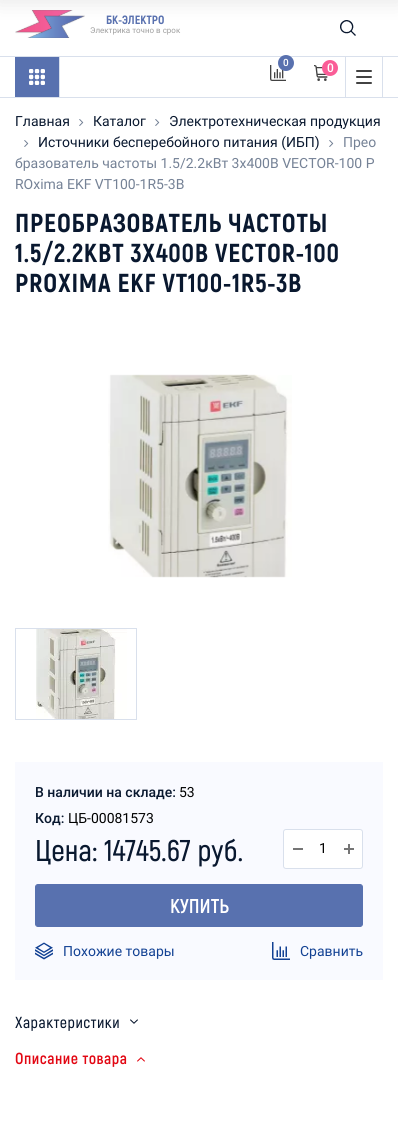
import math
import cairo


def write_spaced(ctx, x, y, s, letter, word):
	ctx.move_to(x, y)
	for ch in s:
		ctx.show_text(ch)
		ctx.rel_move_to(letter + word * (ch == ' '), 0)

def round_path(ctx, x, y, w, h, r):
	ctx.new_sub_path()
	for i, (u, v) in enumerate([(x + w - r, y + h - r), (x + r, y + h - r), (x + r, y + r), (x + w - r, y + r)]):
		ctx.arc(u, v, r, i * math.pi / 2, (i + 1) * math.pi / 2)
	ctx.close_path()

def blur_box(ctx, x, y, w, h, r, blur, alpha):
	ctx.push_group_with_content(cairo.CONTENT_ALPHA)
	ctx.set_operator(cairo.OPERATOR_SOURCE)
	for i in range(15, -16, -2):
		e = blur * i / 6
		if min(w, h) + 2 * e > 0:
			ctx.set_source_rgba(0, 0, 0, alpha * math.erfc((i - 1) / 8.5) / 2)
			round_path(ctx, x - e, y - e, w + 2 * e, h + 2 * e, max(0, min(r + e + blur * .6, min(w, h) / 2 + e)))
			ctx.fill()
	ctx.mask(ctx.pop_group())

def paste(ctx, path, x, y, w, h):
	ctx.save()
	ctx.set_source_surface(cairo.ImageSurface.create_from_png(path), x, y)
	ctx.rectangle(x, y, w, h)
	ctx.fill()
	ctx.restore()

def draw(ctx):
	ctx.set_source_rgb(1, 1, 1)
	ctx.paint()
	paste(ctx, 'media/1.png', 15, 10, 70, 28)
	paste(ctx, 'media/2.png', 340, 20, 16, 16)
	ctx.set_source_rgb(0, 0, 0)
	blur_box(ctx, -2, -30, 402, 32, 0, 10, 0.1)
	ctx.select_font_face('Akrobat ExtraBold')
	ctx.set_font_size(12)
	ctx.set_source_rgb(0.349, 0.443, 0.686)
	ctx.move_to(106, 24)
	ctx.show_text('БК-ЭЛЕКТРО')
	ctx.select_font_face('Roboto')
	ctx.set_font_size(8)
	ctx.set_source_rgb(0.62, 0.62, 0.62)
	ctx.move_to(90, 33)
	ctx.show_text('Электрика точно в срок')
	ctx.set_source_rgb(0.851, 0.878, 0.925)
	ctx.rectangle(0, 56, 398, 1)
	ctx.rectangle(59, 57, 1, 40)
	ctx.fill()
	ctx.set_source_rgb(0.345, 0.443, 0.686)
	ctx.rectangle(15, 57, 44, 40)
	ctx.fill()
	paste(ctx, 'media/3.png', 29, 69, 16, 16)
	paste(ctx, 'media/4.png', 270, 65, 16, 16)
	ctx.set_source_rgb(0.349, 0.443, 0.686)
	ctx.arc(286, 63, 8, 0, 2 * math.pi)
	ctx.fill()
	ctx.select_font_face('Roboto Medium')
	ctx.set_font_size(10)
	ctx.set_source_rgb(1, 1, 1)
	ctx.move_to(283, 66)
	ctx.show_text('0')
	paste(ctx, 'media/5.png', 314, 65, 14, 16)
	ctx.set_source_rgb(0.98, 0.365, 0.592)
	ctx.arc(330, 68, 8, 0, 2 * math.pi)
	ctx.fill()
	ctx.set_font_size(12)
	ctx.set_source_rgb(1, 1, 1)
	ctx.move_to(327, 72)
	ctx.show_text('0')
	ctx.set_source_rgb(0.851, 0.878, 0.925)
	ctx.rectangle(382, 57, 1, 40)
	ctx.fill()
	ctx.rectangle(345, 57, 1, 40)
	ctx.fill()
	ctx.set_source_rgb(0.259, 0.259, 0.259)
	round_path(ctx, 356, 70, 16, 2, 1)
	ctx.fill()
	round_path(ctx, 356, 76, 16, 2, 1)
	ctx.fill()
	round_path(ctx, 356, 82, 16, 2, 1)
	ctx.fill()
	ctx.set_source_rgb(0.851, 0.878, 0.925)
	ctx.rectangle(0, 97, 398, 1)
	ctx.fill()
	ctx.select_font_face('Roboto')
	ctx.set_font_size(14)
	ctx.set_source_rgb(0.039, 0.094, 0.184)
	ctx.move_to(15, 126)
	ctx.show_text('Главная')
	paste(ctx, 'media/6.png', 79, 119, 5, 7)
	ctx.move_to(93, 126)
	ctx.show_text('Каталог')
	paste(ctx, 'media/6.png', 155, 119, 5, 7)
	ctx.move_to(169, 126)
	ctx.show_text('Электротехническая продукция')
	paste(ctx, 'media/6.png', 24, 140, 5, 7)
	ctx.move_to(38, 147)
	ctx.show_text('Источники бесперебойного питания (ИБП)')
	paste(ctx, 'media/6.png', 329, 140, 5, 7)
	ctx.set_source_rgb(0.459, 0.51, 0.588)
	for x, y, s in [
		(343, 147, 'Прео'),
		(15, 168, 'бразователь частоты 1.5/2.2кВт 3х400В VECTOR-100 P'),
		(15, 189, 'ROxima EKF VT100-1R5-3B'),
	]:
		ctx.move_to(x, y)
		ctx.show_text(s)
	ctx.select_font_face('Akrobat ExtraBold')
	ctx.set_font_size(26)
	ctx.set_source_rgb(0.039, 0.094, 0.184)
	for x, y, s in [
		(15, 232, 'ПРЕОБРАЗОВАТЕЛЬ ЧАСТОТЫ'),
		(15, 262, '1.5/2.2КВТ 3Х400В VECTOR-100'),
		(15, 292, 'PROXIMA EKF VT100-1R5-3B'),
	]:
		write_spaced(ctx, x, y, s, 0.75, 0)
	paste(ctx, 'media/7.png', 108, 374, 184, 204)
	ctx.rectangle(15.5, 628.5, 121, 91)
	ctx.set_source_rgb(0.851, 0.878, 0.925)
	ctx.set_line_width(1)
	ctx.stroke()
	paste(ctx, 'media/8.png', 36, 629, 91, 90)
	ctx.set_source_rgb(0.973, 0.98, 1)
	ctx.rectangle(15, 762, 368, 218)
	ctx.fill()
	ctx.select_font_face('Roboto Medium')
	ctx.set_font_size(14)
	ctx.set_source_rgb(0.039, 0.094, 0.184)
	ctx.move_to(35, 797)
	ctx.show_text('В наличии на складе:')
	ctx.select_font_face('Roboto')
	ctx.set_source_rgb(0, 0, 0)
	ctx.move_to(179, 797)
	ctx.show_text('53')
	ctx.select_font_face('Roboto Medium')
	ctx.set_source_rgb(0.039, 0.094, 0.184)
	ctx.move_to(35, 823)
	ctx.show_text('Код:')
	ctx.select_font_face('Roboto')
	ctx.set_source_rgb(0, 0, 0)
	ctx.move_to(68, 823)
	ctx.show_text('ЦБ-00081573')
	ctx.select_font_face('Akrobat SemiBold')
	ctx.set_font_size(30)
	ctx.set_source_rgb(0.039, 0.094, 0.184)
	ctx.move_to(35, 861)
	ctx.show_text('Цена: 14745.67 руб.')
	ctx.set_source_rgb(1, 1, 1)
	round_path(ctx, 283.5, 829.5, 79, 39, 2.5)
	ctx.fill_preserve()
	ctx.set_source_rgb(0.851, 0.878, 0.925)
	ctx.stroke()
	ctx.set_source_rgb(0.459, 0.459, 0.459)
	ctx.rectangle(293, 848, 10, 2)
	ctx.fill()
	ctx.select_font_face('Roboto')
	ctx.set_font_size(14)
	ctx.set_source_rgb(0, 0, 0)
	ctx.move_to(319, 853)
	ctx.show_text('1')
	paste(ctx, 'media/9.png', 344, 844, 10, 10)
	ctx.set_source_rgb(0.345, 0.443, 0.686)
	round_path(ctx, 35.5, 884.5, 327, 42, 2.5)
	ctx.fill_preserve()
	ctx.stroke()
	ctx.select_font_face('Akrobat', cairo.FONT_SLANT_NORMAL, cairo.FONT_WEIGHT_BOLD)
	ctx.set_font_size(20)
	ctx.set_source_rgb(1, 1, 1)
	ctx.move_to(170, 913)
	ctx.show_text('КУПИТЬ')
	paste(ctx, 'media/10.png', 35, 942, 18, 18)
	ctx.select_font_face('Roboto')
	ctx.set_font_size(14)
	ctx.set_source_rgb(0.071, 0.255, 0.576)
	ctx.move_to(63, 956)
	ctx.show_text('Похожие товары')
	paste(ctx, 'media/11.png', 272, 942, 18, 18)
	ctx.move_to(300, 956)
	ctx.show_text('Сравнить')
	ctx.select_font_face('Akrobat SemiBold')
	ctx.set_font_size(16)
	ctx.set_source_rgb(0.039, 0.094, 0.184)
	write_spaced(ctx, 15, 1028, 'Характеристики', 0.5, 0)
	paste(ctx, 'media/12.png', 130, 1019, 8, 5)
	ctx.select_font_face('Akrobat', cairo.FONT_SLANT_NORMAL, cairo.FONT_WEIGHT_BOLD)
	ctx.set_source_rgb(0.886, 0.031, 0.075)
	write_spaced(ctx, 15, 1064, 'Описание товара', 0.5, 0)
	paste(ctx, 'media/13.png', 137, 1057, 8, 5)


surface = cairo.ImageSurface(cairo.FORMAT_RGB24, 398, 1133)
ctx = cairo.Context(surface)
options = cairo.FontOptions()
options.set_hint_metrics(cairo.HINT_METRICS_OFF)
options.set_hint_style(cairo.HINT_STYLE_NONE)
ctx.set_font_options(options)
ctx.set_miter_limit(4)
draw(ctx)
surface.write_to_png('image.png')
